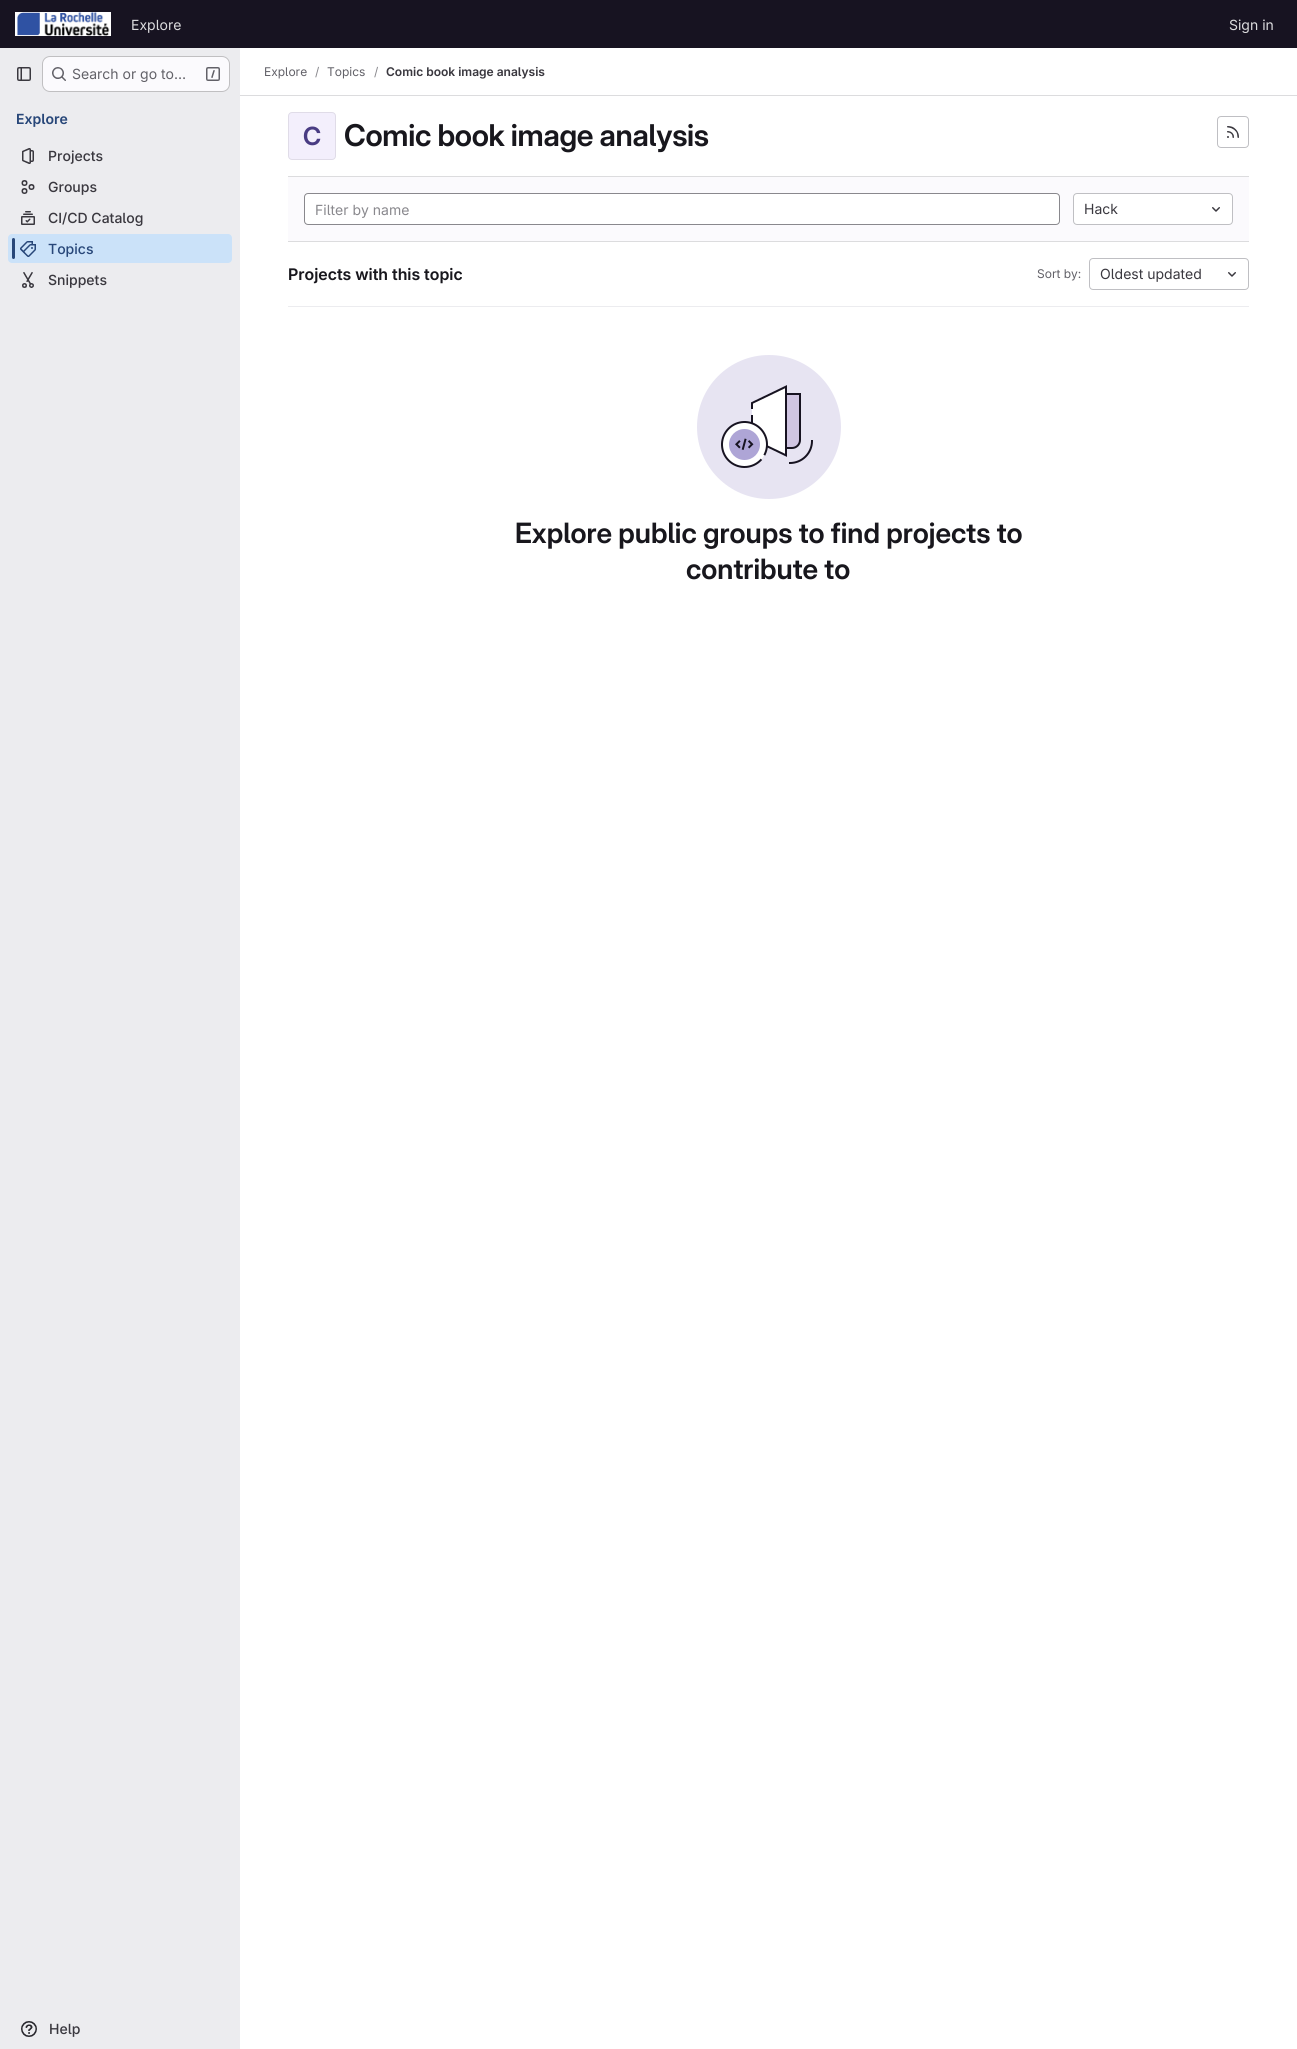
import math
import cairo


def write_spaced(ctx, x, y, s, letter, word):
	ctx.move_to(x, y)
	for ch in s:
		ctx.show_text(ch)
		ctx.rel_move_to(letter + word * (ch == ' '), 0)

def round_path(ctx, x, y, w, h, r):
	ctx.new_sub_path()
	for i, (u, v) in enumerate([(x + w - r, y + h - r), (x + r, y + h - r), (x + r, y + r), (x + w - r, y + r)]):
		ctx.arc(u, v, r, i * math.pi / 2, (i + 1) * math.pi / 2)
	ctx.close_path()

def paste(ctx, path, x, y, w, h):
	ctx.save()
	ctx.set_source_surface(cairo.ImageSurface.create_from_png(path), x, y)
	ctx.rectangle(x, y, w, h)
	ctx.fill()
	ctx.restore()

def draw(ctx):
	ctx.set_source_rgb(1, 1, 1)
	ctx.paint()
	ctx.set_source_rgb(0.09, 0.075, 0.129)
	ctx.rectangle(0, 0, 1297, 48)
	ctx.fill()
	paste(ctx, 'media/1.png', 15, 12, 96, 24)
	ctx.select_font_face('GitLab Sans')
	ctx.set_font_size(14)
	ctx.set_source_rgb(0.863, 0.863, 0.871)
	ctx.move_to(131, 30)
	ctx.show_text('Explore')
	ctx.move_to(1229, 30)
	ctx.show_text('Sign in')
	ctx.set_source_rgb(0.925, 0.925, 0.937)
	ctx.rectangle(0, 48, 240, 2001)
	ctx.fill()
	paste(ctx, 'media/2.png', 17, 67, 14, 14)
	ctx.set_source_rgb(0.984, 0.98, 0.992)
	round_path(ctx, 42, 56, 188, 36, 8)
	ctx.fill()
	round_path(ctx, 42.5, 56.5, 187, 35, 7.5)
	ctx.set_source_rgba(0.02, 0.02, 0.024, 0.24)
	ctx.set_line_width(1)
	ctx.stroke()
	paste(ctx, 'media/3.png', 52, 67, 14, 14)
	ctx.set_source_rgb(0.384, 0.38, 0.408)
	ctx.move_to(72, 79)
	ctx.show_text('Search or go to…')
	paste(ctx, 'media/4.png', 206, 67, 14, 14)
	ctx.select_font_face('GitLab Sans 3 SemiBold')
	ctx.set_source_rgb(0.157, 0.278, 0.475)
	ctx.move_to(16, 124)
	ctx.show_text('Explore')
	paste(ctx, 'media/5.png', 22, 148, 12, 16)
	ctx.select_font_face('GitLab Sans Medium')
	ctx.set_source_rgb(0.227, 0.22, 0.247)
	ctx.move_to(48, 161)
	ctx.show_text('Projects')
	paste(ctx, 'media/6.png', 21, 180, 14, 14)
	ctx.move_to(48, 192)
	ctx.show_text('Groups')
	paste(ctx, 'media/7.png', 21, 211, 14, 14)
	ctx.move_to(48, 223)
	ctx.show_text('CI/CD Catalog')
	ctx.set_source_rgb(0.796, 0.886, 0.976)
	round_path(ctx, 8, 234, 224, 29, 4)
	ctx.fill()
	ctx.set_source_rgb(0.157, 0.278, 0.475)
	round_path(ctx, 12, 238, 3, 21, 1.5)
	ctx.fill()
	paste(ctx, 'media/8.png', 20, 241, 16, 16)
	ctx.move_to(48, 254)
	ctx.show_text('Topics')
	paste(ctx, 'media/9.png', 22, 272, 12, 16)
	ctx.set_source_rgb(0.227, 0.22, 0.247)
	ctx.move_to(48, 285)
	ctx.show_text('Snippets')
	paste(ctx, 'media/10.png', 21, 2021, 16, 16)
	ctx.move_to(49, 2034)
	ctx.show_text('Help')
	ctx.set_source_rgb(0.863, 0.863, 0.871)
	ctx.rectangle(240, 95, 1057, 1)
	ctx.fill()
	ctx.select_font_face('GitLab Sans')
	ctx.set_font_size(12)
	ctx.set_source_rgb(0.384, 0.38, 0.408)
	ctx.move_to(264, 76)
	ctx.show_text('Explore')
	ctx.set_source_rgb(0.537, 0.533, 0.553)
	ctx.move_to(315, 76)
	ctx.show_text('/')
	ctx.set_source_rgb(0.384, 0.38, 0.408)
	ctx.move_to(327, 76)
	ctx.show_text('Topics')
	ctx.set_source_rgb(0.537, 0.533, 0.553)
	ctx.move_to(374, 76)
	ctx.show_text('/')
	ctx.select_font_face('GitLab Sans 3 SemiBold')
	ctx.set_source_rgb(0.227, 0.22, 0.247)
	ctx.move_to(386, 76)
	ctx.show_text('Comic book image analysis')
	ctx.set_source_rgb(0.953, 0.937, 0.988)
	round_path(ctx, 288, 112, 48, 48, 4)
	ctx.fill()
	round_path(ctx, 288.5, 112.5, 47, 47, 3.5)
	ctx.set_source_rgba(0.02, 0.02, 0.024, 0.08)
	ctx.stroke()
	ctx.select_font_face('GitLab Sans SemiBold')
	ctx.set_font_size(25)
	ctx.set_source_rgb(0.286, 0.235, 0.514)
	write_spaced(ctx, 303, 145, 'C', -0.3, 0)
	ctx.set_font_size(30)
	ctx.set_source_rgb(0.094, 0.09, 0.114)
	write_spaced(ctx, 344, 146, 'Comic book image analysis', -0.3, 0)
	round_path(ctx, 1217.5, 116.5, 31, 31, 3.5)
	ctx.set_source_rgb(0.749, 0.749, 0.765)
	ctx.stroke()
	paste(ctx, 'media/11.png', 1227, 126, 12, 12)
	ctx.set_source_rgb(0.984, 0.98, 0.992)
	ctx.rectangle(288, 177, 961, 64)
	ctx.fill()
	ctx.set_source_rgb(0.863, 0.863, 0.871)
	ctx.rectangle(288, 176, 961, 1)
	ctx.rectangle(288, 241, 961, 1)
	ctx.fill()
	ctx.set_source_rgb(1, 1, 1)
	round_path(ctx, 304.5, 193.5, 755, 31, 3.5)
	ctx.fill_preserve()
	ctx.set_source_rgb(0.537, 0.533, 0.553)
	ctx.stroke()
	ctx.select_font_face('GitLab Sans')
	ctx.set_font_size(14)
	ctx.move_to(315, 215)
	ctx.show_text('Filter by name')
	ctx.set_source_rgb(1, 1, 1)
	round_path(ctx, 1073.5, 193.5, 159, 31, 3.5)
	ctx.fill_preserve()
	ctx.set_source_rgb(0.749, 0.749, 0.765)
	ctx.stroke()
	ctx.set_source_rgb(0.227, 0.22, 0.247)
	ctx.move_to(1084, 214)
	ctx.show_text('Hack')
	paste(ctx, 'media/12.png', 1212, 207, 8, 5)
	ctx.set_source_rgb(0.925, 0.925, 0.937)
	ctx.rectangle(288, 306, 961, 1)
	ctx.fill()
	ctx.select_font_face('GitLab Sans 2 SemiBold')
	ctx.set_font_size(16)
	ctx.set_source_rgb(0.094, 0.09, 0.114)
	ctx.move_to(288, 280)
	ctx.show_text('Projects with this topic')
	ctx.select_font_face('GitLab Sans')
	ctx.set_font_size(12)
	ctx.set_source_rgb(0.384, 0.38, 0.408)
	ctx.move_to(1037, 278)
	ctx.show_text('Sort by:')
	round_path(ctx, 1089.5, 258.5, 159, 31, 3.5)
	ctx.set_source_rgb(0.749, 0.749, 0.765)
	ctx.stroke()
	ctx.set_font_size(14)
	ctx.set_source_rgb(0.227, 0.22, 0.247)
	ctx.move_to(1100, 279)
	ctx.show_text('Oldest updated')
	paste(ctx, 'media/12.png', 1228, 272, 8, 5)
	paste(ctx, 'media/13.png', 697, 355, 144, 144)
	ctx.select_font_face('GitLab Sans SemiBold')
	ctx.set_font_size(28)
	ctx.set_source_rgb(0.094, 0.09, 0.114)
	ctx.move_to(515, 543)
	ctx.show_text('Explore public groups to find projects to')
	ctx.move_to(686, 579)
	ctx.show_text('contribute to')


surface = cairo.ImageSurface(cairo.FORMAT_RGB24, 1297, 2049)
ctx = cairo.Context(surface)
options = cairo.FontOptions()
options.set_hint_metrics(cairo.HINT_METRICS_OFF)
options.set_hint_style(cairo.HINT_STYLE_NONE)
ctx.set_font_options(options)
ctx.set_miter_limit(4)
draw(ctx)
surface.write_to_png('image.png')
